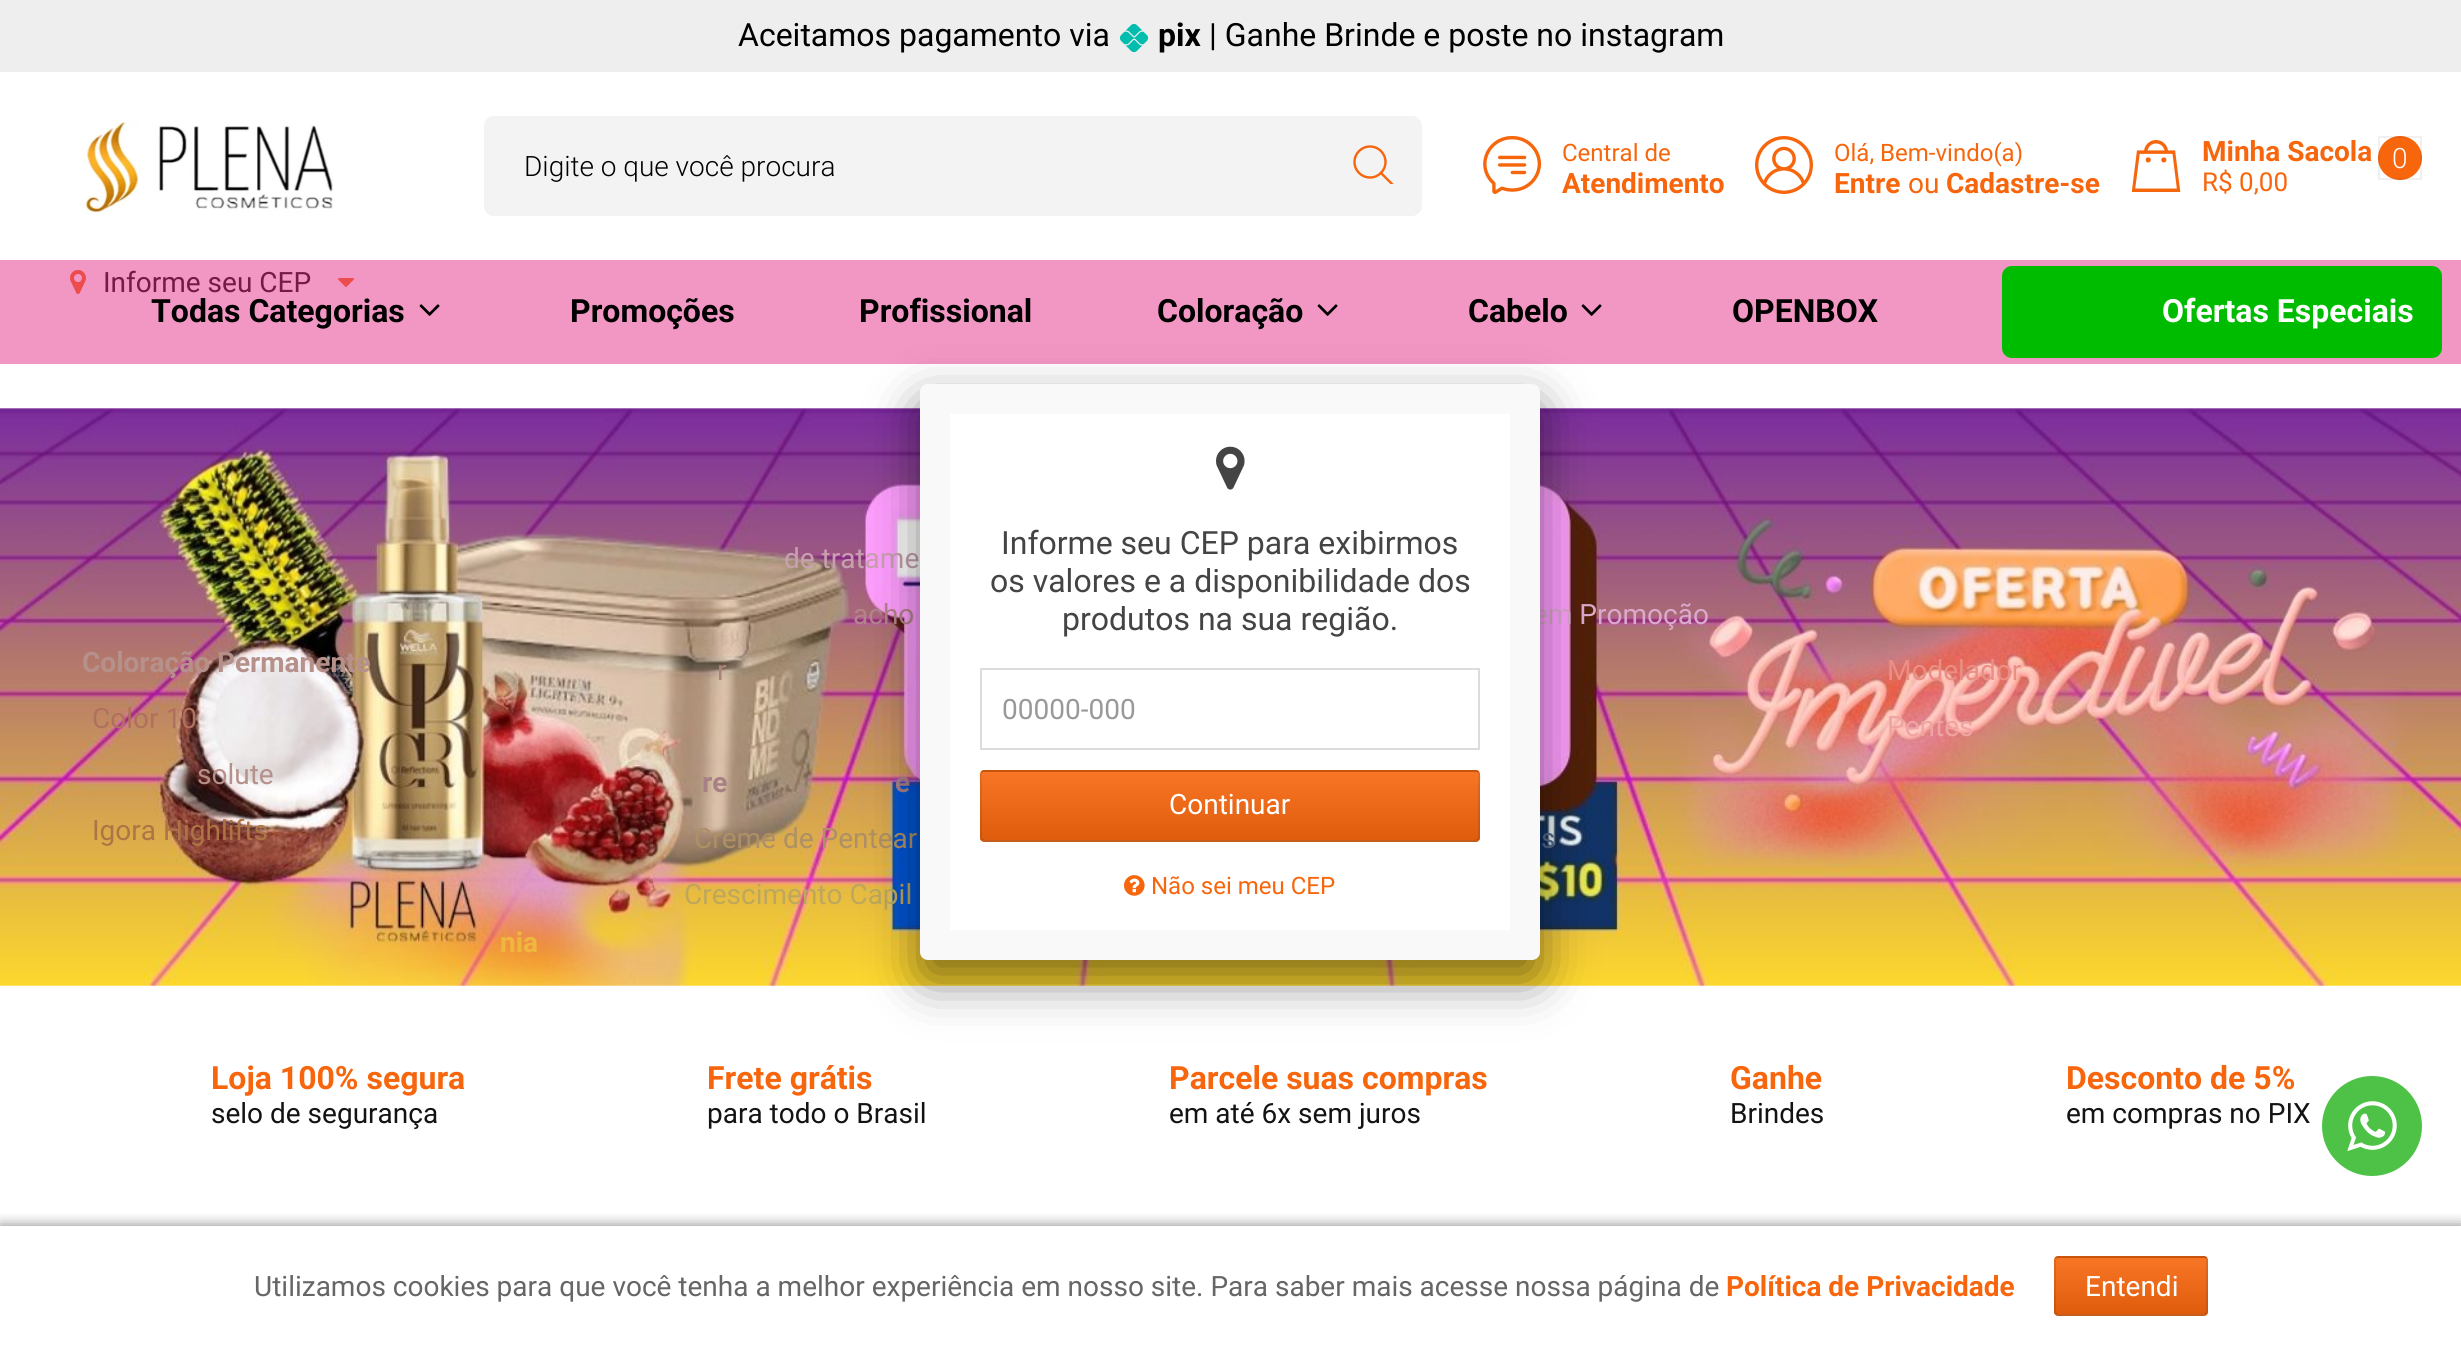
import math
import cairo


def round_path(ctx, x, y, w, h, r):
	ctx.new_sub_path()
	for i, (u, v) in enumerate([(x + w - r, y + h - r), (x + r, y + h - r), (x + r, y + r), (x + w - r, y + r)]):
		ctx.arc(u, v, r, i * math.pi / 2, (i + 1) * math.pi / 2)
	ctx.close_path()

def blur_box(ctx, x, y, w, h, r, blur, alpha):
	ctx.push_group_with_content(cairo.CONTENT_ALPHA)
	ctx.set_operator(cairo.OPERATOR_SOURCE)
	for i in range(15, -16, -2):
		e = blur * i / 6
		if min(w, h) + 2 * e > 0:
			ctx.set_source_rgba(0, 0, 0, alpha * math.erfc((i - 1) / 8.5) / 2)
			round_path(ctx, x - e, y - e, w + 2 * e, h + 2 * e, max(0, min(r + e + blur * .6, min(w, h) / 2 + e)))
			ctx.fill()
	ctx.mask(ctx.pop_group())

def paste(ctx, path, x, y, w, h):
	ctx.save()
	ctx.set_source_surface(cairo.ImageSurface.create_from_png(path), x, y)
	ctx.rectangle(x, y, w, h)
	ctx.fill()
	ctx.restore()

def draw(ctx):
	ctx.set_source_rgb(1, 1, 1)
	ctx.paint()
	ctx.set_source_rgb(0.949, 0.588, 0.765)
	ctx.rectangle(0, 260, 2461, 104)
	ctx.fill()
	ctx.set_source_rgb(0.933, 0.933, 0.933)
	ctx.rectangle(0, 0, 2461, 72)
	ctx.fill()
	ctx.select_font_face('Roboto')
	ctx.set_font_size(32)
	ctx.set_source_rgb(0, 0, 0)
	ctx.move_to(738, 46)
	ctx.show_text('Aceitamos pagamento via')
	paste(ctx, 'media/1.png', 1119, 23, 30, 30)
	ctx.select_font_face('Roboto', cairo.FONT_SLANT_NORMAL, cairo.FONT_WEIGHT_BOLD)
	ctx.move_to(1158, 46)
	ctx.show_text('pix')
	ctx.select_font_face('Roboto')
	ctx.move_to(1209, 46)
	ctx.show_text('| Ganhe Brinde e poste no instagram')
	paste(ctx, 'media/2.png', 83, 121, 250, 94)
	ctx.set_source_rgb(0.953, 0.953, 0.953)
	round_path(ctx, 484, 116, 938, 100, 10)
	ctx.fill()
	ctx.select_font_face('Roboto Light')
	ctx.set_font_size(28)
	ctx.set_source_rgb(0, 0, 0)
	ctx.move_to(524, 176)
	ctx.show_text('Digite o que você procura')
	ctx.save()
	ctx.rectangle(1352, 144, 44, 40)
	ctx.clip()
	ctx.new_path()
	ctx.move_to(1393.5, 185.5)
	ctx.line_to(1381, 173)
	ctx.set_source_rgb(0.965, 0.4, 0.051)
	ctx.set_line_width(2.4)
	ctx.set_line_cap(cairo.LINE_CAP_SQUARE)
	ctx.stroke()
	ctx.restore()
	ctx.arc(1370, 162, 15.5, 0, 2 * math.pi)
	ctx.set_source_rgb(0.965, 0.4, 0.051)
	ctx.set_line_width(2.4)
	ctx.stroke()
	paste(ctx, 'media/3.png', 1483, 136, 59, 58)
	ctx.select_font_face('Roboto')
	ctx.set_font_size(24)
	ctx.move_to(1562, 161)
	ctx.show_text('Central de')
	ctx.select_font_face('Roboto', cairo.FONT_SLANT_NORMAL, cairo.FONT_WEIGHT_BOLD)
	ctx.set_font_size(28)
	ctx.move_to(1562, 193)
	ctx.show_text('Atendimento')
	paste(ctx, 'media/4.png', 1755, 136, 58, 58)
	ctx.select_font_face('Roboto')
	ctx.set_font_size(24)
	ctx.move_to(1834, 161)
	ctx.show_text('Olá, Bem-vindo(a)')
	ctx.select_font_face('Roboto', cairo.FONT_SLANT_NORMAL, cairo.FONT_WEIGHT_BOLD)
	ctx.set_font_size(28)
	ctx.move_to(1834, 193)
	ctx.show_text('Entre')
	ctx.select_font_face('Roboto')
	ctx.move_to(1908, 193)
	ctx.show_text('ou')
	ctx.select_font_face('Roboto', cairo.FONT_SLANT_NORMAL, cairo.FONT_WEIGHT_BOLD)
	ctx.move_to(1946, 193)
	ctx.show_text('Cadastre-se')
	paste(ctx, 'media/5.png', 2131, 140, 50, 52)
	ctx.move_to(2202, 161)
	ctx.show_text('Minha Sacola')
	ctx.select_font_face('Roboto')
	ctx.set_font_size(26)
	ctx.move_to(2202, 191)
	ctx.show_text('R$ 0,00')
	ctx.new_path()
	ctx.arc(2400, 158, 22, 0, 2 * math.pi)
	ctx.fill()
	ctx.rectangle(2379, 137, 42, 42)
	ctx.set_source_rgba(0, 0, 0, 0.06)
	ctx.set_line_width(2)
	ctx.stroke()
	ctx.select_font_face('Roboto Light')
	ctx.set_font_size(28)
	ctx.set_source_rgb(1, 1, 1)
	ctx.move_to(2392, 168)
	ctx.show_text('0')
	ctx.select_font_face('Roboto', cairo.FONT_SLANT_NORMAL, cairo.FONT_WEIGHT_BOLD)
	ctx.set_font_size(32)
	ctx.set_source_rgb(0, 0, 0)
	ctx.move_to(859, 322)
	ctx.show_text('Profissional')
	ctx.set_source_rgb(0, 0.737, 0)
	round_path(ctx, 2002, 266, 440, 92, 10)
	ctx.fill()
	ctx.set_source_rgb(1, 1, 1)
	ctx.move_to(2162, 322)
	ctx.show_text('Ofertas Especiais')
	ctx.set_source_rgb(0, 0, 0)
	ctx.move_to(151, 322)
	ctx.show_text('Todas Categorias')
	paste(ctx, 'media/6.png', 419, 304, 21, 12)
	paste(ctx, 'media/9.png', 0, 408, 2461, 578)
	ctx.set_font_size(28)
	ctx.set_source_rgb(0.714, 0.565, 0.545)
	ctx.move_to(82, 672)
	ctx.show_text('Coloração Permanente')
	ctx.select_font_face('Roboto')
	ctx.set_source_rgb(0.686, 0.439, 0.365)
	ctx.move_to(92, 728)
	ctx.show_text('Color 10')
	ctx.set_source_rgb(0.714, 0.565, 0.545)
	ctx.move_to(197, 784)
	ctx.show_text('solute')
	ctx.set_source_rgb(0.678, 0.455, 0.275)
	ctx.move_to(92, 840)
	ctx.show_text('Igora Highlifts')
	ctx.select_font_face('Roboto', cairo.FONT_SLANT_NORMAL, cairo.FONT_WEIGHT_BOLD)
	ctx.set_source_rgb(0.941, 0.718, 0.243)
	ctx.move_to(500, 952)
	ctx.show_text('nia')
	ctx.select_font_face('Roboto')
	ctx.set_source_rgb(0.78, 0.631, 0.682)
	ctx.move_to(784, 568)
	ctx.show_text('de tratame')
	ctx.set_source_rgb(0.702, 0.518, 0.545)
	ctx.move_to(853, 624)
	ctx.show_text('acho')
	ctx.set_source_rgb(0.655, 0.518, 0.455)
	ctx.move_to(717, 680)
	ctx.show_text('r')
	ctx.select_font_face('Roboto', cairo.FONT_SLANT_NORMAL, cairo.FONT_WEIGHT_BOLD)
	ctx.set_source_rgb(0.655, 0.502, 0.525)
	ctx.move_to(702, 792)
	ctx.show_text('re')
	ctx.move_to(895, 792)
	ctx.show_text('e')
	ctx.select_font_face('Roboto')
	ctx.set_source_rgb(0.682, 0.565, 0.4)
	ctx.move_to(694, 848)
	ctx.show_text('Creme de Pentear')
	ctx.set_source_rgb(0.745, 0.655, 0.365)
	ctx.move_to(684, 904)
	ctx.show_text('Crescimento Capil')
	ctx.set_source_rgb(0.859, 0.663, 0.8)
	ctx.move_to(1533, 624)
	ctx.show_text('em Promoção')
	ctx.set_source_rgb(0.333, 0.424, 0.541)
	ctx.move_to(1541, 848)
	ctx.show_text('s')
	ctx.set_source_rgb(0.918, 0.557, 0.518)
	ctx.move_to(1887, 680)
	ctx.show_text('Modelador')
	ctx.set_source_rgb(0.941, 0.643, 0.631)
	ctx.move_to(1887, 736)
	ctx.show_text('Pentes')
	ctx.select_font_face('Roboto', cairo.FONT_SLANT_NORMAL, cairo.FONT_WEIGHT_BOLD)
	ctx.set_font_size(32)
	ctx.set_source_rgb(0, 0, 0)
	ctx.move_to(570, 322)
	ctx.show_text('Promoções')
	ctx.move_to(1157, 322)
	ctx.show_text('Coloração')
	paste(ctx, 'media/6.png', 1317, 304, 21, 12)
	ctx.move_to(1468, 322)
	ctx.show_text('Cabelo')
	paste(ctx, 'media/6.png', 1581, 304, 21, 12)
	ctx.move_to(1732, 322)
	ctx.show_text('OPENBOX')
	paste(ctx, 'media/7.png', 70, 270, 16, 24)
	ctx.select_font_face('Roboto')
	ctx.set_font_size(28)
	ctx.set_source_rgb(0.459, 0.102, 0.275)
	ctx.move_to(103, 292)
	ctx.show_text('Informe seu CEP')
	paste(ctx, 'media/8.png', 338, 278, 16, 9)
	ctx.select_font_face('Roboto', cairo.FONT_SLANT_NORMAL, cairo.FONT_WEIGHT_BOLD)
	ctx.set_font_size(32)
	ctx.set_source_rgb(0.965, 0.4, 0.051)
	ctx.move_to(211, 1089)
	ctx.show_text('Loja 100% segura')
	ctx.select_font_face('Roboto')
	ctx.set_font_size(28)
	ctx.set_source_rgb(0.078, 0.075, 0.075)
	ctx.move_to(211, 1123)
	ctx.show_text('selo de segurança')
	ctx.select_font_face('Roboto', cairo.FONT_SLANT_NORMAL, cairo.FONT_WEIGHT_BOLD)
	ctx.set_font_size(32)
	ctx.set_source_rgb(0.965, 0.4, 0.051)
	ctx.move_to(707, 1089)
	ctx.show_text('Frete grátis')
	ctx.select_font_face('Roboto')
	ctx.set_font_size(28)
	ctx.set_source_rgb(0.078, 0.075, 0.075)
	ctx.move_to(707, 1123)
	ctx.show_text('para todo o Brasil')
	ctx.select_font_face('Roboto', cairo.FONT_SLANT_NORMAL, cairo.FONT_WEIGHT_BOLD)
	ctx.set_font_size(32)
	ctx.set_source_rgb(0.965, 0.4, 0.051)
	ctx.move_to(1169, 1089)
	ctx.show_text('Parcele suas compras')
	ctx.select_font_face('Roboto')
	ctx.set_font_size(28)
	ctx.set_source_rgb(0.078, 0.075, 0.075)
	ctx.move_to(1169, 1123)
	ctx.show_text('em até 6x sem juros')
	ctx.select_font_face('Roboto', cairo.FONT_SLANT_NORMAL, cairo.FONT_WEIGHT_BOLD)
	ctx.set_font_size(32)
	ctx.set_source_rgb(0.965, 0.4, 0.051)
	ctx.move_to(1730, 1089)
	ctx.show_text('Ganhe')
	ctx.select_font_face('Roboto')
	ctx.set_font_size(28)
	ctx.set_source_rgb(0.078, 0.075, 0.075)
	ctx.move_to(1730, 1123)
	ctx.show_text('Brindes')
	ctx.select_font_face('Roboto', cairo.FONT_SLANT_NORMAL, cairo.FONT_WEIGHT_BOLD)
	ctx.set_font_size(32)
	ctx.set_source_rgb(0.965, 0.4, 0.051)
	ctx.move_to(2066, 1089)
	ctx.show_text('Desconto de 5%')
	ctx.select_font_face('Roboto')
	ctx.set_font_size(28)
	ctx.set_source_rgb(0.078, 0.075, 0.075)
	ctx.move_to(2066, 1123)
	ctx.show_text('em compras no PIX')
	ctx.set_source_rgb(0, 0, 0)
	blur_box(ctx, 920, 404, 620, 576, 8, 25, 0.5)
	ctx.set_source_rgb(0.976, 0.976, 0.976)
	round_path(ctx, 920, 384, 620, 576, 8)
	ctx.fill()
	ctx.set_source_rgb(1, 1, 1)
	ctx.rectangle(950, 414, 560, 516)
	ctx.fill()
	paste(ctx, 'media/10.png', 1216, 446, 29, 44)
	ctx.set_font_size(32)
	ctx.set_source_rgb(0.267, 0.267, 0.267)
	for x, y, s in [
		(1001, 554, 'Informe seu CEP para exibirmos'),
		(990, 592, 'os valores e a disponibilidade dos'),
		(1062, 630, 'produtos na sua região.'),
	]:
		ctx.move_to(x, y)
		ctx.show_text(s)
	ctx.rectangle(981, 669, 498, 80)
	ctx.set_source_rgb(0.863, 0.863, 0.863)
	ctx.stroke()
	ctx.set_font_size(28)
	ctx.set_source_rgb(0.6, 0.6, 0.6)
	ctx.move_to(1002, 719)
	ctx.show_text('00000-000')
	ctx.set_source_rgb(0.965, 0.4, 0.051)
	round_path(ctx, 980, 770, 500, 72, 4)
	ctx.fill()
	ctx.save()
	round_path(ctx, 980, 770, 500, 72, 4)
	ctx.clip()
	gradient = cairo.LinearGradient(1230, 704, 1230, 772)
	gradient.add_color_stop_rgba(0, 1, 1, 1, 0.1)
	gradient.add_color_stop_rgba(1, 0, 0, 0, 0.1)
	ctx.set_source(gradient)
	ctx.rectangle(980, 770, 500, 2)
	ctx.fill()
	ctx.restore()
	gradient = cairo.LinearGradient(1230, 772, 1230, 840)
	gradient.add_color_stop_rgba(0, 1, 1, 1, 0.1)
	gradient.add_color_stop_rgba(1, 0, 0, 0, 0.1)
	ctx.set_source(gradient)
	ctx.rectangle(980, 772, 500, 68)
	ctx.fill()
	ctx.save()
	round_path(ctx, 980, 770, 500, 72, 4)
	ctx.clip()
	gradient = cairo.LinearGradient(1230, 840, 1230, 908)
	gradient.add_color_stop_rgba(0, 1, 1, 1, 0.1)
	gradient.add_color_stop_rgba(1, 0, 0, 0, 0.1)
	ctx.set_source(gradient)
	ctx.rectangle(980, 840, 500, 2)
	ctx.fill()
	ctx.restore()
	ctx.new_path()
	ctx.move_to(1478, 840)
	ctx.line_to(1476, 841)
	ctx.line_to(984, 841)
	ctx.line_to(982, 840)
	ctx.set_source_rgba(0, 0, 0, 0.2)
	ctx.stroke()
	ctx.new_path()
	ctx.move_to(982, 840)
	ctx.line_to(981, 838)
	ctx.line_to(981, 784.5)
	ctx.curve_to(981, 784.5, 978.5, 771, 984, 771)
	ctx.line_to(1476, 771)
	ctx.curve_to(1481.5, 771, 1479, 784.5, 1479, 784.5)
	ctx.line_to(1479, 838)
	ctx.line_to(1478, 840)
	ctx.set_source_rgba(0, 0, 0, 0.1)
	ctx.stroke()
	ctx.set_source_rgb(1, 1, 1)
	ctx.move_to(1169, 814)
	ctx.show_text('Continuar')
	paste(ctx, 'media/11.png', 1124, 875, 21, 21)
	ctx.set_font_size(24)
	ctx.set_source_rgb(0.965, 0.4, 0.051)
	ctx.move_to(1151, 894)
	ctx.show_text('Não sei meu CEP')
	ctx.set_source_rgb(0.302, 0.761, 0.278)
	ctx.new_path()
	ctx.arc(2372, 1126, 50, 0, 2 * math.pi)
	ctx.fill()
	paste(ctx, 'media/12.png', 2347, 1101, 50, 51)
	ctx.save()
	ctx.rectangle(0, 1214, 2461, 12)
	ctx.clip()
	ctx.set_source_rgb(0, 0, 0)
	blur_box(ctx, 0, 1226, 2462, 120, 0, 7, 0.5)
	ctx.restore()
	ctx.set_font_size(28)
	ctx.set_source_rgb(0.4, 0.4, 0.4)
	ctx.move_to(254, 1296)
	ctx.show_text('Utilizamos cookies para que você tenha a melhor experiência em nosso site. Para saber mais acesse nossa página de')
	ctx.select_font_face('Roboto', cairo.FONT_SLANT_NORMAL, cairo.FONT_WEIGHT_BOLD)
	ctx.set_source_rgb(0.965, 0.4, 0.051)
	ctx.move_to(1726, 1296)
	ctx.show_text('Política de Privacidade')
	round_path(ctx, 2054, 1256, 154, 60, 4)
	ctx.fill()
	ctx.save()
	round_path(ctx, 2054, 1256, 154, 60, 4)
	ctx.clip()
	gradient = cairo.LinearGradient(2131, 1202, 2131, 1258)
	gradient.add_color_stop_rgba(0, 1, 1, 1, 0.1)
	gradient.add_color_stop_rgba(1, 0, 0, 0, 0.1)
	ctx.set_source(gradient)
	ctx.rectangle(2054, 1256, 154, 2)
	ctx.fill()
	ctx.restore()
	gradient = cairo.LinearGradient(2131, 1258, 2131, 1314)
	gradient.add_color_stop_rgba(0, 1, 1, 1, 0.1)
	gradient.add_color_stop_rgba(1, 0, 0, 0, 0.1)
	ctx.set_source(gradient)
	ctx.rectangle(2054, 1258, 154, 56)
	ctx.fill()
	ctx.save()
	round_path(ctx, 2054, 1256, 154, 60, 4)
	ctx.clip()
	gradient = cairo.LinearGradient(2131, 1314, 2131, 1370)
	gradient.add_color_stop_rgba(0, 1, 1, 1, 0.1)
	gradient.add_color_stop_rgba(1, 0, 0, 0, 0.1)
	ctx.set_source(gradient)
	ctx.rectangle(2054, 1314, 154, 2)
	ctx.fill()
	ctx.restore()
	ctx.new_path()
	ctx.move_to(2206, 1314)
	ctx.line_to(2204, 1315)
	ctx.line_to(2057.5, 1315)
	ctx.line_to(2056, 1314)
	ctx.set_source_rgba(0, 0, 0, 0.2)
	ctx.stroke()
	ctx.new_path()
	ctx.move_to(2056, 1314)
	ctx.line_to(2055, 1312)
	ctx.line_to(2055, 1260)
	ctx.line_to(2056, 1258)
	ctx.line_to(2058, 1257)
	ctx.line_to(2204, 1257)
	ctx.line_to(2206, 1258)
	ctx.line_to(2207, 1260)
	ctx.line_to(2207, 1312)
	ctx.line_to(2206, 1314)
	ctx.set_source_rgba(0, 0, 0, 0.1)
	ctx.stroke()
	ctx.select_font_face('Roboto')
	ctx.set_source_rgb(1, 1, 1)
	ctx.move_to(2085, 1296)
	ctx.show_text('Entendi')


surface = cairo.ImageSurface(cairo.FORMAT_RGB24, 2461, 1346)
ctx = cairo.Context(surface)
options = cairo.FontOptions()
options.set_hint_metrics(cairo.HINT_METRICS_OFF)
options.set_hint_style(cairo.HINT_STYLE_NONE)
ctx.set_font_options(options)
ctx.set_miter_limit(4)
draw(ctx)
surface.write_to_png('image.png')
